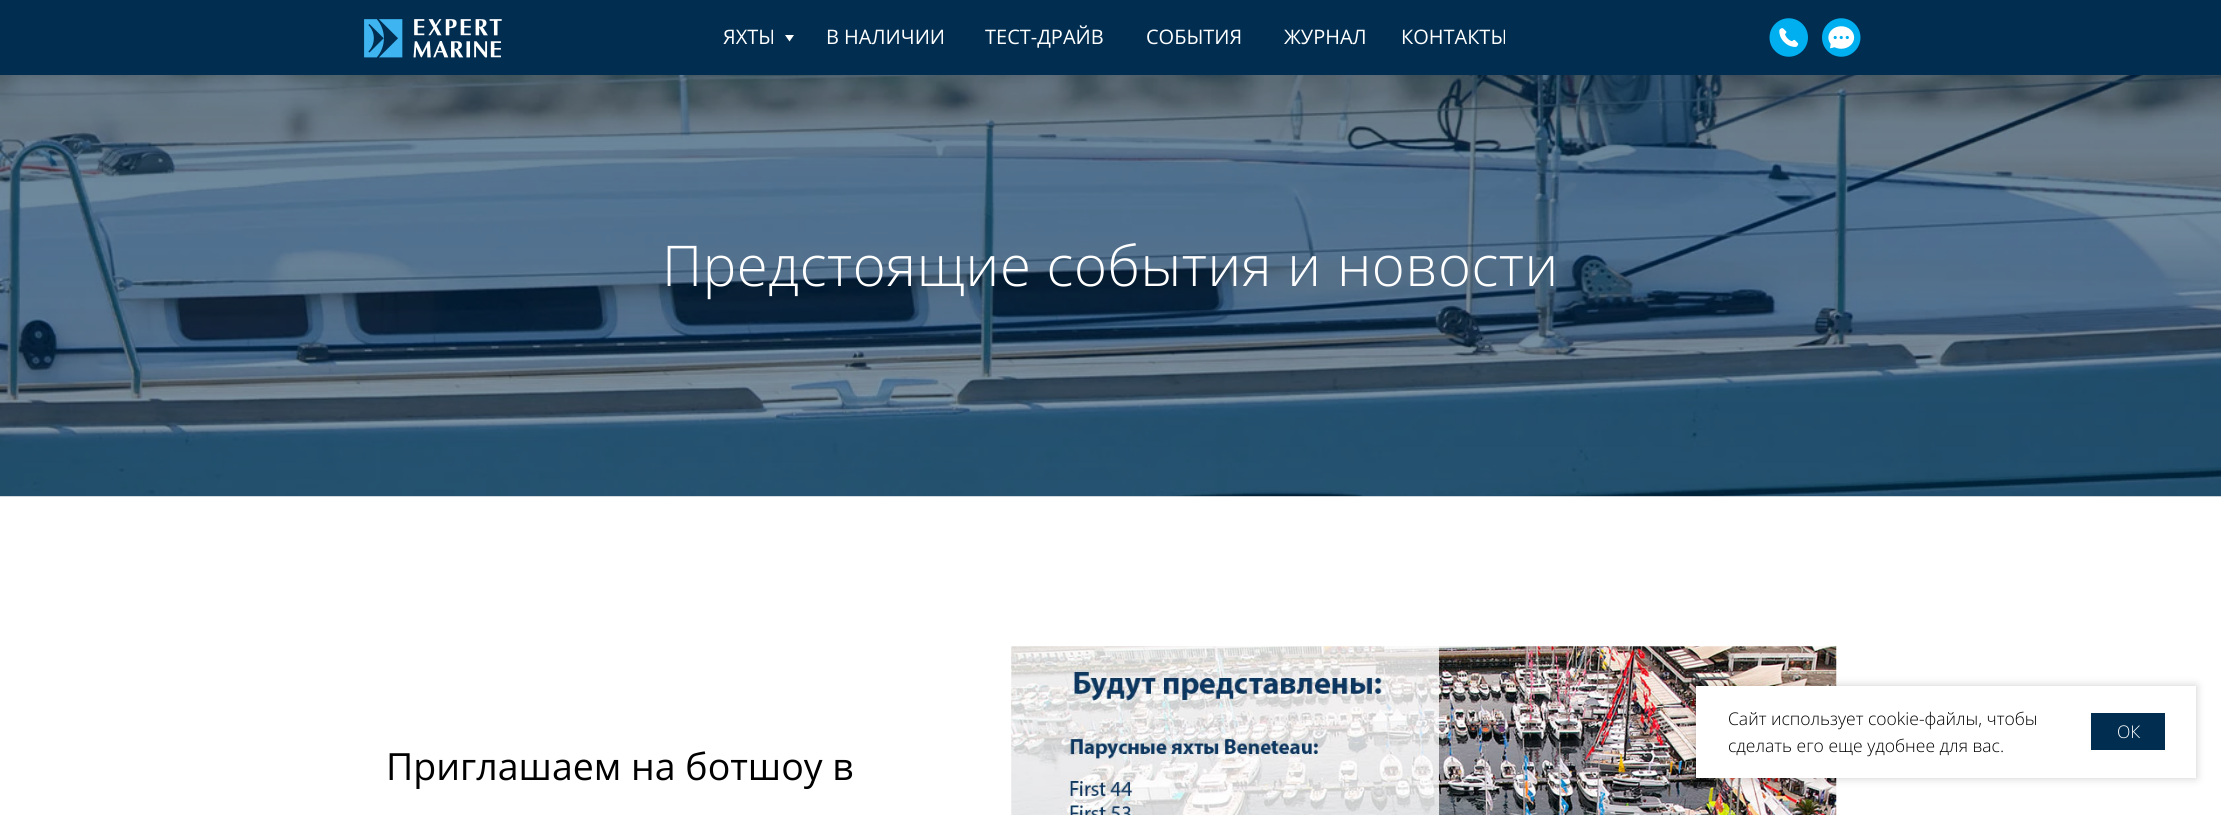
import math
import cairo


def write_spaced(ctx, x, y, s, letter, word):
	ctx.move_to(x, y)
	for ch in s:
		ctx.show_text(ch)
		ctx.rel_move_to(letter + word * (ch == ' '), 0)

def round_path(ctx, x, y, w, h, r):
	ctx.new_sub_path()
	for i, (u, v) in enumerate([(x + w - r, y + h - r), (x + r, y + h - r), (x + r, y + r), (x + w - r, y + r)]):
		ctx.arc(u, v, r, i * math.pi / 2, (i + 1) * math.pi / 2)
	ctx.close_path()

def blur_box(ctx, x, y, w, h, r, blur, alpha):
	ctx.push_group_with_content(cairo.CONTENT_ALPHA)
	ctx.set_operator(cairo.OPERATOR_SOURCE)
	for i in range(15, -16, -2):
		e = blur * i / 6
		if min(w, h) + 2 * e > 0:
			ctx.set_source_rgba(0, 0, 0, alpha * math.erfc((i - 1) / 8.5) / 2)
			round_path(ctx, x - e, y - e, w + 2 * e, h + 2 * e, max(0, min(r + e + blur * .6, min(w, h) / 2 + e)))
			ctx.fill()
	ctx.mask(ctx.pop_group())

def paste(ctx, path, x, y, w, h):
	ctx.save()
	ctx.set_source_surface(cairo.ImageSurface.create_from_png(path), x, y)
	ctx.rectangle(x, y, w, h)
	ctx.fill()
	ctx.restore()

def draw(ctx):
	ctx.set_source_rgb(1, 1, 1)
	ctx.paint()
	ctx.set_source_rgb(0, 0.176, 0.314)
	ctx.rectangle(0, 0, 2221, 75)
	ctx.fill()
	paste(ctx, 'media/1.png', 364, 19, 138, 39)
	ctx.select_font_face('Open Sans')
	ctx.set_font_size(20)
	ctx.set_source_rgb(1, 1, 1)
	ctx.move_to(723, 44)
	ctx.show_text('ЯХТЫ')
	ctx.new_path()
	ctx.move_to(789.5, 41.5)
	ctx.line_to(785, 35)
	ctx.line_to(794, 35)
	ctx.close_path()
	ctx.fill()
	for x, y, s in [
		(826, 44, 'В НАЛИЧИИ'),
		(985, 44, 'ТЕСТ-ДРАЙВ'),
		(1146, 44, 'СОБЫТИЯ'),
		(1284, 44, 'ЖУРНАЛ'),
		(1401, 44, 'КОНТАКТЫ'),
	]:
		ctx.move_to(x, y)
		ctx.show_text(s)
	paste(ctx, 'media/2.png', 1769, 18, 39, 39)
	paste(ctx, 'media/3.png', 1822, 18, 39, 39)
	paste(ctx, 'media/4.png', 0, 496, 2221, 1)
	paste(ctx, 'media/5.png', 0, 75, 2221, 422)
	ctx.select_font_face('Open Sans Light')
	ctx.set_font_size(56.25)
	write_spaced(ctx, 662, 286, 'Предстоящие события и новости', 0.6, 0)
	paste(ctx, 'media/6.png', 1011, 646, 826, 169)
	ctx.set_source_rgb(0, 0, 0)
	blur_box(ctx, 1696, 686, 500, 92, 0, 4.5, 0.2)
	ctx.set_source_rgb(1, 1, 1)
	ctx.rectangle(1696, 686, 500, 92)
	ctx.fill()
	ctx.set_font_size(17.5)
	ctx.set_source_rgb(0, 0, 0)
	ctx.move_to(1728, 725)
	ctx.show_text('Сайт использует cookie-файлы, чтобы')
	ctx.move_to(1728, 752)
	ctx.show_text('сделать его еще удобнее для вас.')
	ctx.set_source_rgb(0, 0.176, 0.314)
	ctx.rectangle(2091, 713, 74, 37)
	ctx.fill()
	ctx.set_source_rgb(1, 1, 1)
	ctx.move_to(2117, 738)
	ctx.show_text('ОК')
	ctx.select_font_face('Open Sans')
	ctx.set_font_size(37.5)
	ctx.set_source_rgb(0, 0, 0)
	ctx.move_to(386, 780)
	ctx.show_text('Приглашаем на ботшоу в')


surface = cairo.ImageSurface(cairo.FORMAT_RGB24, 2221, 815)
ctx = cairo.Context(surface)
options = cairo.FontOptions()
options.set_hint_metrics(cairo.HINT_METRICS_OFF)
options.set_hint_style(cairo.HINT_STYLE_NONE)
ctx.set_font_options(options)
ctx.set_miter_limit(4)
draw(ctx)
surface.write_to_png('image.png')
